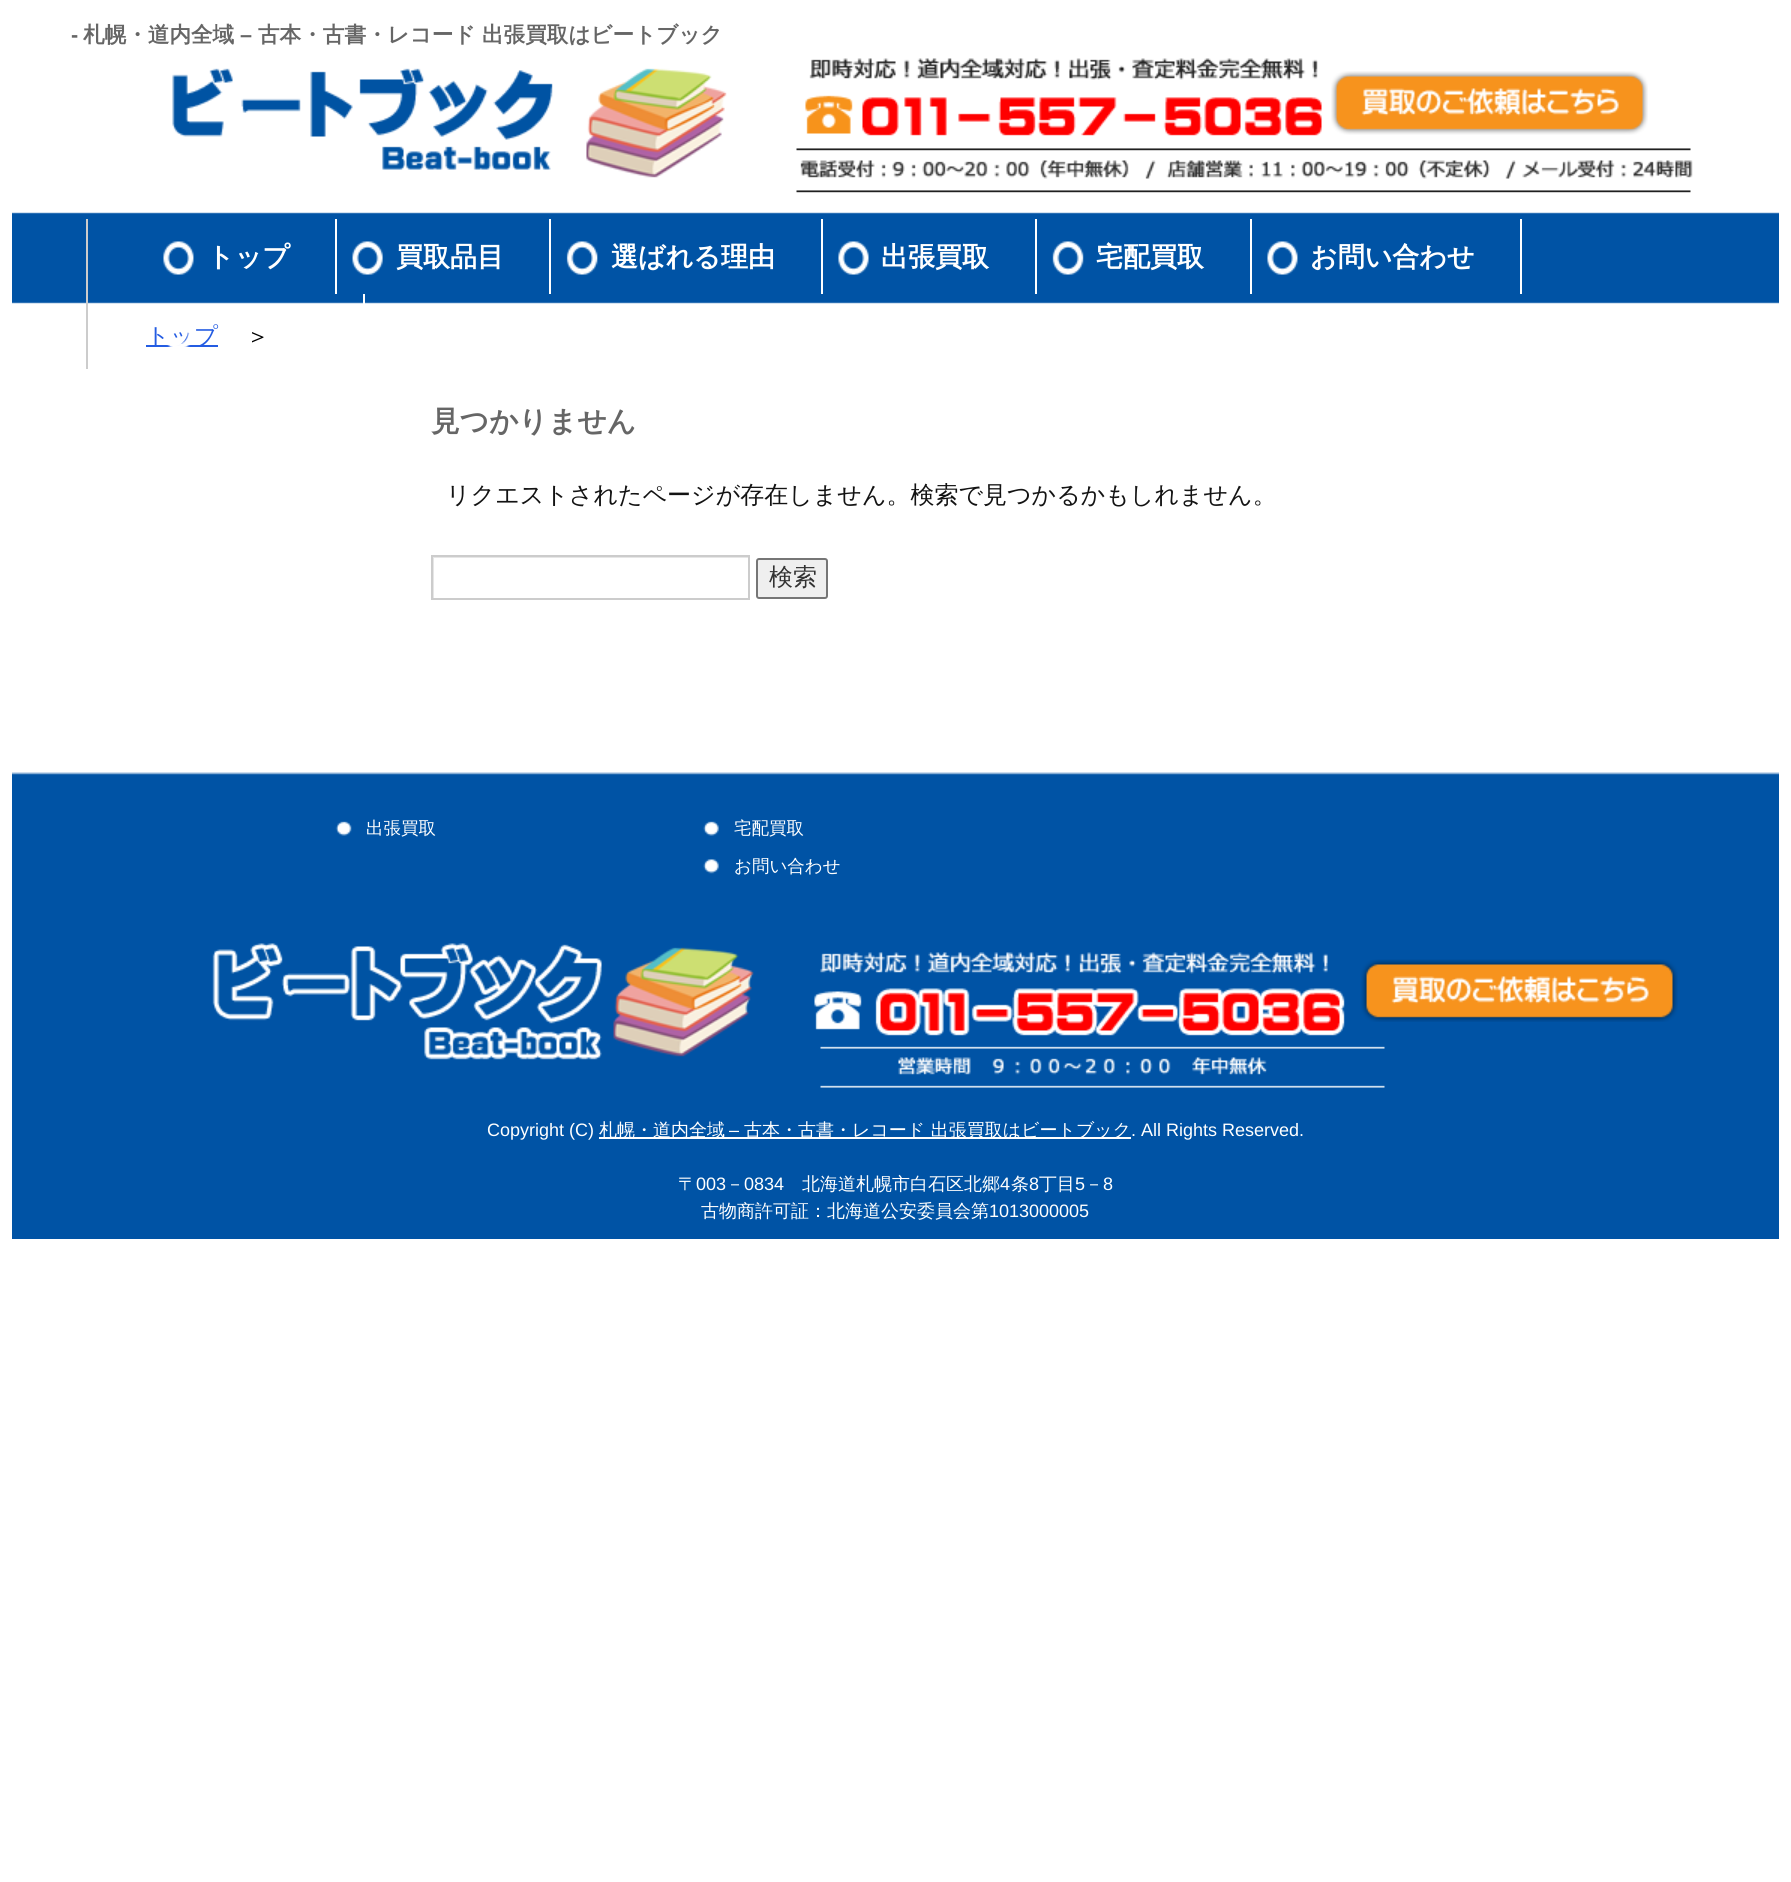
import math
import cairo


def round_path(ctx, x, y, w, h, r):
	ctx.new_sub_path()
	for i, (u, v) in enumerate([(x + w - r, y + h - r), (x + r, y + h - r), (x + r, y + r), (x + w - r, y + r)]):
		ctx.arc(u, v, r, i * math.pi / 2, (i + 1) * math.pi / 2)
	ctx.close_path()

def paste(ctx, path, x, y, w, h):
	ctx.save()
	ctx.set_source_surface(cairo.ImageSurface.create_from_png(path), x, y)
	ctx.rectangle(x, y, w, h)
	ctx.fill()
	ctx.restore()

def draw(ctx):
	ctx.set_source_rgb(1, 1, 1)
	ctx.paint()
	paste(ctx, 'media/1.png', 12, 212, 1767, 92)
	ctx.select_font_face('Liberation Sans', cairo.FONT_SLANT_NORMAL, cairo.FONT_WEIGHT_BOLD)
	ctx.set_font_size(21.6)
	ctx.set_source_rgb(0.4, 0.4, 0.4)
	ctx.move_to(71, 42)
	ctx.show_text('-')
	ctx.select_font_face('WenQuanYi Zen Hei', cairo.FONT_SLANT_NORMAL, cairo.FONT_WEIGHT_BOLD)
	ctx.move_to(83, 42)
	ctx.show_text('札幌・道内全域')
	ctx.select_font_face('Liberation Sans', cairo.FONT_SLANT_NORMAL, cairo.FONT_WEIGHT_BOLD)
	ctx.move_to(240, 42)
	ctx.show_text('–')
	ctx.select_font_face('WenQuanYi Zen Hei', cairo.FONT_SLANT_NORMAL, cairo.FONT_WEIGHT_BOLD)
	ctx.move_to(258, 42)
	ctx.show_text('古本・古書・レコード 出張買取はビートブック')
	paste(ctx, 'media/2.png', 796, 58, 897, 135)
	paste(ctx, 'media/3.png', 172, 68, 555, 110)
	paste(ctx, 'media/4.png', 1331, 71, 317, 64)
	ctx.set_source_rgb(0.8, 0.8, 0.8)
	ctx.rectangle(86, 219, 2, 150)
	ctx.fill()
	paste(ctx, 'media/5.png', 163, 241, 31, 34)
	ctx.set_source_rgb(1, 1, 1)
	ctx.rectangle(335, 219, 2, 75)
	ctx.fill()
	ctx.set_font_size(27)
	ctx.move_to(207, 266)
	ctx.show_text('トップ')
	paste(ctx, 'media/6.png', 352, 241, 31, 34)
	ctx.rectangle(549, 219, 2, 75)
	ctx.fill()
	ctx.move_to(396, 266)
	ctx.show_text('買取品目')
	paste(ctx, 'media/7.png', 566, 241, 32, 34)
	ctx.rectangle(821, 219, 2, 75)
	ctx.fill()
	ctx.move_to(611, 266)
	ctx.show_text('選ばれる理由')
	paste(ctx, 'media/8.png', 838, 241, 31, 34)
	ctx.rectangle(1035, 219, 2, 75)
	ctx.fill()
	ctx.move_to(881, 266)
	ctx.show_text('出張買取')
	paste(ctx, 'media/9.png', 1052, 241, 32, 34)
	ctx.rectangle(1250, 219, 2, 75)
	ctx.fill()
	ctx.move_to(1096, 266)
	ctx.show_text('宅配買取')
	paste(ctx, 'media/10.png', 1267, 241, 31, 34)
	ctx.rectangle(1520, 219, 2, 75)
	ctx.fill()
	ctx.move_to(1310, 266)
	ctx.show_text('お問い合わせ')
	ctx.set_source_rgb(0.141, 0.361, 0.886)
	ctx.rectangle(146, 345, 72, 2)
	ctx.fill()
	ctx.select_font_face('WenQuanYi Zen Hei Medium')
	ctx.set_font_size(23.5)
	ctx.move_to(146, 344)
	ctx.show_text('トップ')
	paste(ctx, 'media/11.png', 163, 332, 28, 15)
	ctx.set_source_rgb(1, 1, 1)
	ctx.rectangle(363, 294, 2, 10)
	ctx.fill()
	ctx.set_source_rgb(0, 0, 0)
	ctx.move_to(246, 344)
	ctx.show_text('＞')
	ctx.select_font_face('WenQuanYi Zen Hei', cairo.FONT_SLANT_NORMAL, cairo.FONT_WEIGHT_BOLD)
	ctx.set_font_size(28.75)
	ctx.set_source_rgb(0.4, 0.4, 0.4)
	ctx.move_to(431, 431)
	ctx.show_text('見つかりません')
	ctx.select_font_face('WenQuanYi Zen Hei Medium')
	ctx.set_font_size(24)
	ctx.set_source_rgb(0.075, 0.075, 0.075)
	ctx.move_to(446, 503)
	ctx.show_text('リクエストされたページが存在しません。検索で見つかるかもしれません。')
	ctx.save()
	ctx.rectangle(432, 557, 317, 42)
	ctx.clip()
	ctx.set_source_rgb(0.902, 0.902, 0.902)
	ctx.set_fill_rule(cairo.FILL_RULE_EVEN_ODD)
	ctx.new_path()
	ctx.move_to(284, 408)
	ctx.line_to(897, 408)
	ctx.line_to(897, 747)
	ctx.line_to(284, 747)
	ctx.close_path()
	ctx.move_to(434, 558)
	ctx.line_to(750, 558)
	ctx.line_to(750, 600)
	ctx.line_to(434, 600)
	ctx.close_path()
	ctx.fill()
	ctx.restore()
	ctx.rectangle(432, 556, 317, 43)
	ctx.set_source_rgb(0.8, 0.8, 0.8)
	ctx.stroke()
	ctx.set_source_rgb(0.937, 0.937, 0.937)
	round_path(ctx, 757, 559, 70, 39, 2)
	ctx.fill_preserve()
	ctx.set_source_rgb(0.463, 0.463, 0.463)
	ctx.stroke()
	ctx.set_source_rgb(0.2, 0.2, 0.2)
	ctx.move_to(769, 585)
	ctx.show_text('検索')
	paste(ctx, 'media/12.png', 12, 772, 1767, 467)
	paste(ctx, 'media/13.png', 335, 821, 17, 15)
	ctx.set_font_size(17.5)
	ctx.set_source_rgb(1, 1, 1)
	ctx.move_to(366, 834)
	ctx.show_text('出張買取')
	paste(ctx, 'media/14.png', 703, 821, 16, 15)
	ctx.move_to(734, 834)
	ctx.show_text('宅配買取')
	paste(ctx, 'media/15.png', 703, 859, 16, 15)
	ctx.move_to(734, 872)
	ctx.show_text('お問い合わせ')
	paste(ctx, 'media/16.png', 212, 943, 1173, 145)
	paste(ctx, 'media/17.png', 1361, 959, 317, 63)
	ctx.select_font_face('Liberation Sans')
	ctx.set_font_size(18)
	ctx.move_to(487, 1136)
	ctx.show_text('Copyright (C)')
	ctx.rectangle(599, 1137, 532, 2)
	ctx.fill()
	ctx.select_font_face('WenQuanYi Zen Hei Medium')
	ctx.move_to(599, 1136)
	ctx.show_text('札幌・道内全域')
	ctx.select_font_face('Liberation Sans')
	ctx.move_to(729, 1136)
	ctx.show_text('–')
	ctx.select_font_face('WenQuanYi Zen Hei Medium')
	ctx.move_to(744, 1136)
	ctx.show_text('古本・古書・レコード 出張買取はビートブック')
	ctx.select_font_face('Liberation Sans')
	ctx.move_to(1131, 1136)
	ctx.show_text('. All Rights Reserved.')
	ctx.select_font_face('WenQuanYi Zen Hei Medium')
	ctx.move_to(678, 1190)
	ctx.show_text('〒')
	ctx.select_font_face('Liberation Sans')
	ctx.move_to(696, 1190)
	ctx.show_text('003')
	ctx.select_font_face('WenQuanYi Zen Hei Medium')
	ctx.move_to(726, 1190)
	ctx.show_text('－')
	ctx.select_font_face('Liberation Sans')
	ctx.move_to(744, 1190)
	ctx.show_text('0834')
	ctx.select_font_face('WenQuanYi Zen Hei Medium')
	ctx.move_to(802, 1190)
	ctx.show_text('北海道札幌市白石区北郷')
	ctx.select_font_face('Liberation Sans')
	ctx.move_to(1000, 1190)
	ctx.show_text('4')
	ctx.select_font_face('WenQuanYi Zen Hei Medium')
	ctx.move_to(1011, 1190)
	ctx.show_text('条')
	ctx.select_font_face('Liberation Sans')
	ctx.move_to(1029, 1190)
	ctx.show_text('8')
	ctx.select_font_face('WenQuanYi Zen Hei Medium')
	ctx.move_to(1039, 1190)
	ctx.show_text('丁目')
	ctx.select_font_face('Liberation Sans')
	ctx.move_to(1075, 1190)
	ctx.show_text('5')
	ctx.select_font_face('WenQuanYi Zen Hei Medium')
	ctx.move_to(1085, 1190)
	ctx.show_text('－')
	ctx.select_font_face('Liberation Sans')
	ctx.move_to(1103, 1190)
	ctx.show_text('8')
	ctx.select_font_face('WenQuanYi Zen Hei Medium')
	ctx.move_to(701, 1217)
	ctx.show_text('古物商許可証：北海道公安委員会第')
	ctx.select_font_face('Liberation Sans')
	ctx.move_to(989, 1217)
	ctx.show_text('1013000005')


surface = cairo.ImageSurface(cairo.FORMAT_RGB24, 1791, 1882)
ctx = cairo.Context(surface)
options = cairo.FontOptions()
options.set_hint_metrics(cairo.HINT_METRICS_OFF)
options.set_hint_style(cairo.HINT_STYLE_NONE)
ctx.set_font_options(options)
ctx.set_miter_limit(4)
draw(ctx)
surface.write_to_png('image.png')
